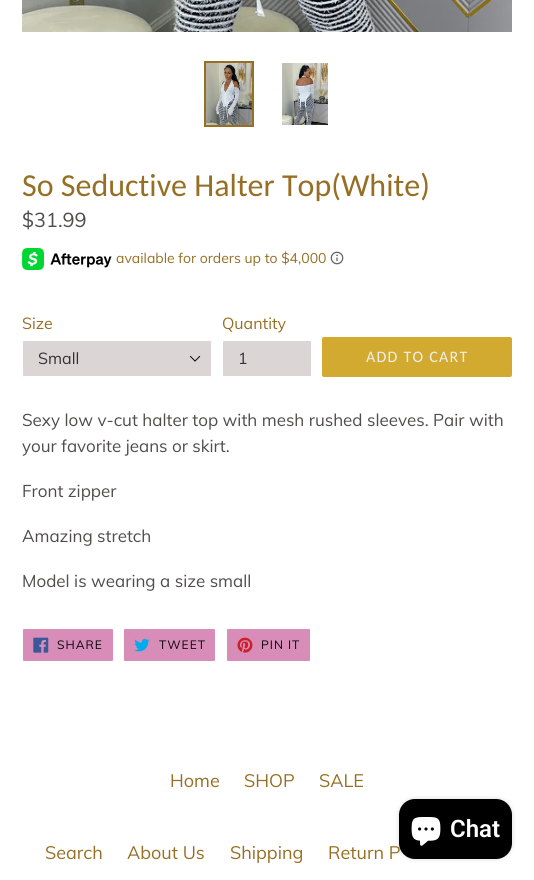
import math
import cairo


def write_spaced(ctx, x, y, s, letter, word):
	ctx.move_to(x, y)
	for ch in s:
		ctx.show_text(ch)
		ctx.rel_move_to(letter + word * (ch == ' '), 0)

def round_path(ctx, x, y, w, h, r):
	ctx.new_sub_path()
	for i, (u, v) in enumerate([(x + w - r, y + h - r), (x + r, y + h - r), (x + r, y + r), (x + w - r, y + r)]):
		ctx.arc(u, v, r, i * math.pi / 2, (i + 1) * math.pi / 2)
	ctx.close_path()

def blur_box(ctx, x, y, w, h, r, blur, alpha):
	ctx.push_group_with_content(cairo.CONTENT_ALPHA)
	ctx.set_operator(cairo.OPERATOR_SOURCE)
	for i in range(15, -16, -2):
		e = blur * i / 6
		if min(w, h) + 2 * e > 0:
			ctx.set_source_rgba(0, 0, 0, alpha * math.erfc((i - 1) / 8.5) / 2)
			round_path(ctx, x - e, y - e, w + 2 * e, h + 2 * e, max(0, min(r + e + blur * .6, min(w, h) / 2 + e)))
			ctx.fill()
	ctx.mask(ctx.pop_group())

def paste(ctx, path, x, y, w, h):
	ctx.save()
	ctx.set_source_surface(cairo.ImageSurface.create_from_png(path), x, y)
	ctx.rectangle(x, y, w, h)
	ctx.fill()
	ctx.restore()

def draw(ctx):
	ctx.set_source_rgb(1, 1, 1)
	ctx.paint()
	paste(ctx, 'media/1.png', 22, 0, 490, 32)
	ctx.rectangle(205, 62, 48, 64)
	ctx.set_source_rgb(0.588, 0.435, 0.141)
	ctx.stroke()
	paste(ctx, 'media/2.png', 206, 63, 46, 62)
	paste(ctx, 'media/3.png', 282, 63, 46, 62)
	ctx.select_font_face('Carlito')
	ctx.set_font_size(32)
	ctx.move_to(22, 196)
	ctx.show_text('So Seductive Halter Top(White)')
	ctx.select_font_face('Muli')
	ctx.set_font_size(20)
	ctx.set_source_rgb(0.318, 0.298, 0.298)
	ctx.move_to(22, 227)
	ctx.show_text('$31.99')
	paste(ctx, 'media/4.png', 22, 248, 90, 22)
	ctx.set_font_size(14)
	ctx.set_source_rgb(0.588, 0.435, 0.141)
	ctx.move_to(116, 263)
	ctx.show_text('available for orders up to $4,000')
	paste(ctx, 'media/5.png', 330, 251, 14, 14)
	ctx.set_font_size(16)
	ctx.move_to(22, 329)
	ctx.show_text('Size')
	ctx.set_source_rgb(0.863, 0.835, 0.835)
	round_path(ctx, 22, 340, 190, 37, 2)
	ctx.fill()
	paste(ctx, 'media/6.png', 189, 355, 12, 7)
	round_path(ctx, 22.5, 340.5, 189, 36, 1.5)
	ctx.set_source_rgb(1, 1, 1)
	ctx.set_line_width(1)
	ctx.stroke()
	ctx.set_source_rgb(0.22, 0.188, 0.22)
	ctx.move_to(38, 364)
	ctx.show_text('Small')
	ctx.set_source_rgb(0.588, 0.435, 0.141)
	ctx.move_to(222, 329)
	ctx.show_text('Quantity')
	ctx.set_source_rgb(0.863, 0.835, 0.835)
	round_path(ctx, 222.5, 340.5, 89, 36, 1.5)
	ctx.fill_preserve()
	ctx.set_source_rgb(1, 1, 1)
	ctx.stroke()
	ctx.set_source_rgb(0.22, 0.188, 0.22)
	ctx.move_to(238, 364)
	ctx.show_text('1')
	ctx.set_source_rgb(0.827, 0.667, 0.188)
	round_path(ctx, 322, 337, 190, 40, 2)
	ctx.fill()
	ctx.select_font_face('Carlito')
	ctx.set_source_rgb(0.933, 0.933, 0.933)
	write_spaced(ctx, 366, 362, 'ADD TO CART', 1.25, 0)
	ctx.select_font_face('Muli')
	ctx.set_font_size(17)
	ctx.set_source_rgb(0.318, 0.298, 0.298)
	for x, y, s in [
		(22, 426, 'Sexy low v-cut halter top with mesh rushed sleeves. Pair with'),
		(22, 452, 'your favorite jeans or skirt.'),
		(22, 497, 'Front zipper'),
		(22, 542, 'Amazing stretch'),
		(22, 587, 'Model is wearing a size small'),
	]:
		ctx.move_to(x, y)
		ctx.show_text(s)
	ctx.set_source_rgb(0.847, 0.553, 0.725)
	round_path(ctx, 22.5, 628.5, 91, 33, 1.5)
	ctx.fill_preserve()
	ctx.set_source_rgb(1, 1, 1)
	ctx.stroke()
	paste(ctx, 'media/7.png', 33, 637, 16, 16)
	ctx.set_font_size(12)
	ctx.set_source_rgb(0.035, 0.012, 0.035)
	write_spaced(ctx, 57, 649, 'SHARE', 1, 0)
	ctx.set_source_rgb(0.847, 0.553, 0.725)
	round_path(ctx, 123.5, 628.5, 92, 33, 1.5)
	ctx.fill_preserve()
	ctx.set_source_rgb(1, 1, 1)
	ctx.stroke()
	paste(ctx, 'media/8.png', 134, 638, 16, 14)
	ctx.set_source_rgb(0.035, 0.012, 0.035)
	write_spaced(ctx, 159, 649, 'TWEET', 1, 0)
	ctx.set_source_rgb(0.847, 0.553, 0.725)
	round_path(ctx, 226.5, 628.5, 84, 33, 1.5)
	ctx.fill_preserve()
	ctx.set_source_rgb(1, 1, 1)
	ctx.stroke()
	paste(ctx, 'media/9.png', 237, 637, 16, 16)
	ctx.set_source_rgb(0.035, 0.012, 0.035)
	write_spaced(ctx, 261, 649, 'PIN IT', 1, 0)
	ctx.set_font_size(18)
	ctx.set_source_rgb(0.588, 0.435, 0.141)
	for x, y, s in [
		(170, 787, 'Home'),
		(244, 787, 'SHOP'),
		(319, 787, 'SALE'),
		(45, 859, 'Search'),
		(127, 859, 'About Us'),
		(230, 859, 'Shipping'),
		(328, 859, 'Return P'),
	]:
		ctx.move_to(x, y)
		ctx.show_text(s)
	ctx.set_source_rgb(0, 0, 0)
	blur_box(ctx, 399, 799, 113, 60, 16, 2.5, 0.15)
	ctx.set_source_rgb(0, 0, 0)
	round_path(ctx, 399, 799, 113, 60, 16)
	ctx.fill()
	paste(ctx, 'media/10.png', 411, 817, 30, 29)
	ctx.select_font_face('Roboto SemiBold')
	ctx.set_font_size(24)
	ctx.set_source_rgb(1, 1, 1)
	ctx.move_to(450, 837)
	ctx.show_text('Chat')


surface = cairo.ImageSurface(cairo.FORMAT_RGB24, 534, 880)
ctx = cairo.Context(surface)
options = cairo.FontOptions()
options.set_hint_metrics(cairo.HINT_METRICS_OFF)
options.set_hint_style(cairo.HINT_STYLE_NONE)
ctx.set_font_options(options)
ctx.set_miter_limit(4)
draw(ctx)
surface.write_to_png('image.png')
